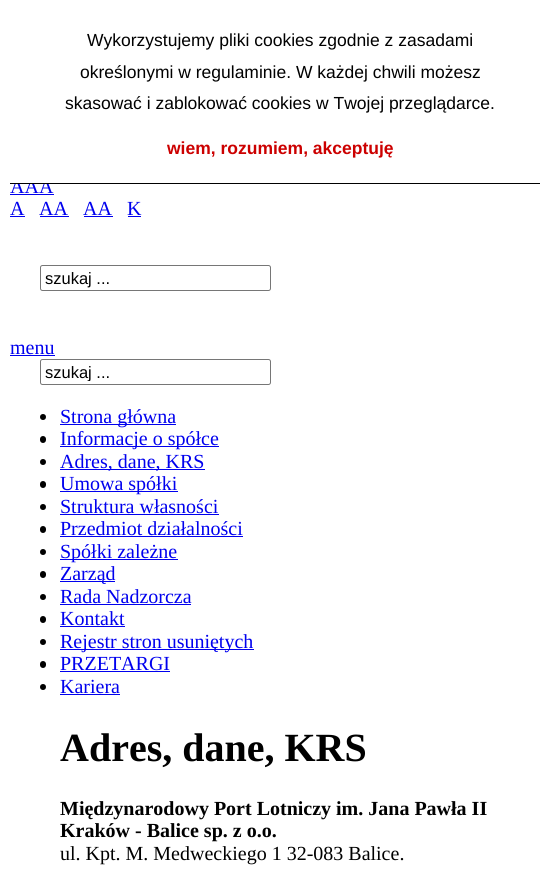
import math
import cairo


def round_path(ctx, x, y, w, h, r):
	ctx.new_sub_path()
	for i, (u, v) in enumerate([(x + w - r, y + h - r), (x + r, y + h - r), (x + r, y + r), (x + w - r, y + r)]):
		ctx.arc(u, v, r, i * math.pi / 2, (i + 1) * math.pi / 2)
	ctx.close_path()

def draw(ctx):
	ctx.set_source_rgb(1, 1, 1)
	ctx.paint()
	ctx.select_font_face('Liberation Serif')
	ctx.set_font_size(20)
	ctx.set_source_rgb(0, 0, 0.933)
	ctx.move_to(10, 193)
	ctx.show_text('AAA')
	ctx.set_source_rgb(1, 1, 1)
	ctx.rectangle(15, 179, 34, 4)
	ctx.fill()
	ctx.set_source_rgb(0, 0, 0)
	ctx.rectangle(10, 183, 530, 1)
	ctx.fill()
	ctx.select_font_face('Liberation Sans')
	ctx.set_font_size(17.5)
	for x, y, s in [
		(87, 46, 'Wykorzystujemy pliki cookies zgodnie z zasadami'),
		(80, 78, 'określonymi w regulaminie. W każdej chwili możesz'),
		(65, 109, 'skasować i zablokować cookies w Twojej przeglądarce.'),
	]:
		ctx.move_to(x, y)
		ctx.show_text(s)
	ctx.select_font_face('Liberation Sans', cairo.FONT_SLANT_NORMAL, cairo.FONT_WEIGHT_BOLD)
	ctx.set_source_rgb(0.8, 0, 0)
	ctx.move_to(167, 154)
	ctx.show_text('wiem, rozumiem, akceptuję')
	ctx.set_source_rgb(0, 0, 0.933)
	ctx.rectangle(10, 194, 44, 1)
	ctx.fill()
	ctx.select_font_face('Liberation Serif')
	ctx.set_font_size(20)
	ctx.move_to(10, 215)
	ctx.show_text('A')
	ctx.rectangle(10, 216, 15, 1)
	ctx.fill()
	ctx.move_to(39, 215)
	ctx.show_text('AA')
	ctx.rectangle(40, 216, 29, 1)
	ctx.fill()
	ctx.move_to(83, 215)
	ctx.show_text('AA')
	ctx.rectangle(84, 216, 29, 1)
	ctx.fill()
	ctx.move_to(127, 215)
	ctx.show_text('K')
	ctx.rectangle(128, 216, 13, 1)
	ctx.fill()
	round_path(ctx, 40.5, 265.5, 230, 25, 2)
	ctx.set_source_rgb(0.463, 0.463, 0.463)
	ctx.set_line_width(1)
	ctx.stroke()
	ctx.select_font_face('Liberation Sans')
	ctx.set_font_size(16.5)
	ctx.set_source_rgb(0, 0, 0)
	ctx.move_to(45, 284)
	ctx.show_text('szukaj ...')
	ctx.select_font_face('Liberation Serif')
	ctx.set_font_size(20)
	ctx.set_source_rgb(0, 0, 0.933)
	ctx.move_to(10, 354)
	ctx.show_text('menu')
	ctx.rectangle(10, 355, 45, 1)
	ctx.fill()
	round_path(ctx, 40.5, 359.5, 230, 25, 2)
	ctx.set_source_rgb(0.463, 0.463, 0.463)
	ctx.stroke()
	ctx.save()
	ctx.rectangle(45, 363, 221, 18)
	ctx.clip()
	ctx.select_font_face('Liberation Sans')
	ctx.set_font_size(16.5)
	ctx.set_source_rgb(0, 0, 0)
	ctx.move_to(45, 378)
	ctx.show_text('szukaj ...')
	ctx.restore()
	ctx.set_source_rgb(0, 0, 0)
	ctx.new_path()
	ctx.arc(43, 417, 3, 0, 2 * math.pi)
	ctx.fill()
	ctx.set_source_rgb(0, 0, 0.933)
	ctx.rectangle(60, 424, 116, 1)
	ctx.fill()
	ctx.move_to(60, 423)
	ctx.show_text('Strona główna')
	ctx.set_source_rgb(0, 0, 0)
	round_path(ctx, 40, 436, 6, 7, 3)
	ctx.fill()
	ctx.set_source_rgb(0, 0, 0.933)
	ctx.rectangle(60, 446, 159, 1)
	ctx.fill()
	ctx.move_to(60, 445)
	ctx.show_text('Informacje o spółce')
	ctx.set_source_rgb(0, 0, 0)
	ctx.new_path()
	ctx.arc(43, 462, 3, 0, 2 * math.pi)
	ctx.fill()
	ctx.set_source_rgb(0, 0, 0.933)
	ctx.rectangle(60, 469, 145, 1)
	ctx.fill()
	ctx.move_to(60, 468)
	ctx.show_text('Adres, dane, KRS')
	ctx.set_source_rgb(0, 0, 0)
	round_path(ctx, 40, 481, 6, 7, 3)
	ctx.fill()
	ctx.set_source_rgb(0, 0, 0.933)
	ctx.rectangle(60, 491, 118, 1)
	ctx.fill()
	ctx.move_to(60, 490)
	ctx.show_text('Umowa spółki')
	ctx.set_source_rgb(0, 0, 0)
	ctx.new_path()
	ctx.arc(43, 507, 3, 0, 2 * math.pi)
	ctx.fill()
	ctx.set_source_rgb(0, 0, 0.933)
	ctx.move_to(60, 513)
	ctx.show_text('Struktura własności')
	ctx.rectangle(60, 514, 159, 1)
	ctx.fill()
	ctx.set_source_rgb(0, 0, 0)
	round_path(ctx, 40, 526, 6, 7, 3)
	ctx.fill()
	ctx.set_source_rgb(0, 0, 0.933)
	ctx.move_to(60, 535)
	ctx.show_text('Przedmiot działalności')
	ctx.rectangle(60, 536, 183, 1)
	ctx.fill()
	ctx.set_source_rgb(0, 0, 0)
	ctx.arc(43, 552, 3, 0, 2 * math.pi)
	ctx.fill()
	ctx.set_source_rgb(0, 0, 0.933)
	ctx.rectangle(60, 559, 118, 1)
	ctx.fill()
	ctx.move_to(60, 558)
	ctx.show_text('Spółki zależne')
	ctx.set_source_rgb(0, 0, 0)
	round_path(ctx, 40, 571, 6, 7, 3)
	ctx.fill()
	ctx.set_source_rgb(0, 0, 0.933)
	ctx.rectangle(60, 581, 55, 1)
	ctx.fill()
	ctx.move_to(60, 580)
	ctx.show_text('Zarząd')
	ctx.set_source_rgb(0, 0, 0)
	ctx.new_path()
	ctx.arc(43, 597, 3, 0, 2 * math.pi)
	ctx.fill()
	ctx.set_source_rgb(0, 0, 0.933)
	ctx.move_to(60, 603)
	ctx.show_text('Rada Nadzorcza')
	ctx.rectangle(60, 604, 131, 1)
	ctx.fill()
	ctx.set_source_rgb(0, 0, 0)
	round_path(ctx, 40, 616, 6, 7, 3)
	ctx.fill()
	ctx.set_source_rgb(0, 0, 0.933)
	ctx.move_to(60, 625)
	ctx.show_text('Kontakt')
	ctx.rectangle(60, 626, 65, 1)
	ctx.fill()
	ctx.set_source_rgb(0, 0, 0)
	ctx.arc(43, 642, 3, 0, 2 * math.pi)
	ctx.fill()
	ctx.set_source_rgb(0, 0, 0.933)
	ctx.rectangle(60, 649, 194, 1)
	ctx.fill()
	ctx.move_to(60, 648)
	ctx.show_text('Rejestr stron usuniętych')
	ctx.set_source_rgb(0, 0, 0)
	round_path(ctx, 40, 661, 6, 7, 3)
	ctx.fill()
	ctx.set_source_rgb(0, 0, 0.933)
	ctx.move_to(60, 670)
	ctx.show_text('PRZETARGI')
	ctx.rectangle(60, 671, 110, 1)
	ctx.fill()
	ctx.set_source_rgb(0, 0, 0)
	ctx.arc(43, 687, 3, 0, 2 * math.pi)
	ctx.fill()
	ctx.set_source_rgb(0, 0, 0.933)
	ctx.move_to(60, 693)
	ctx.show_text('Kariera')
	ctx.rectangle(60, 694, 60, 1)
	ctx.fill()
	ctx.select_font_face('Liberation Serif', cairo.FONT_SLANT_NORMAL, cairo.FONT_WEIGHT_BOLD)
	ctx.set_font_size(40)
	ctx.set_source_rgb(0, 0, 0)
	ctx.move_to(60, 761)
	ctx.show_text('Adres, dane, KRS')
	ctx.set_font_size(20)
	ctx.move_to(60, 815)
	ctx.show_text('Międzynarodowy Port Lotniczy im. Jana Pawła II')
	ctx.move_to(60, 837)
	ctx.show_text('Kraków - Balice sp. z o.o.')
	ctx.select_font_face('Liberation Serif')
	ctx.move_to(60, 860)
	ctx.show_text('ul. Kpt. M. Medweckiego 1 32-083 Balice.')


surface = cairo.ImageSurface(cairo.FORMAT_RGB24, 540, 881)
ctx = cairo.Context(surface)
options = cairo.FontOptions()
options.set_hint_metrics(cairo.HINT_METRICS_OFF)
options.set_hint_style(cairo.HINT_STYLE_NONE)
ctx.set_font_options(options)
ctx.set_miter_limit(4)
draw(ctx)
surface.write_to_png('image.png')
